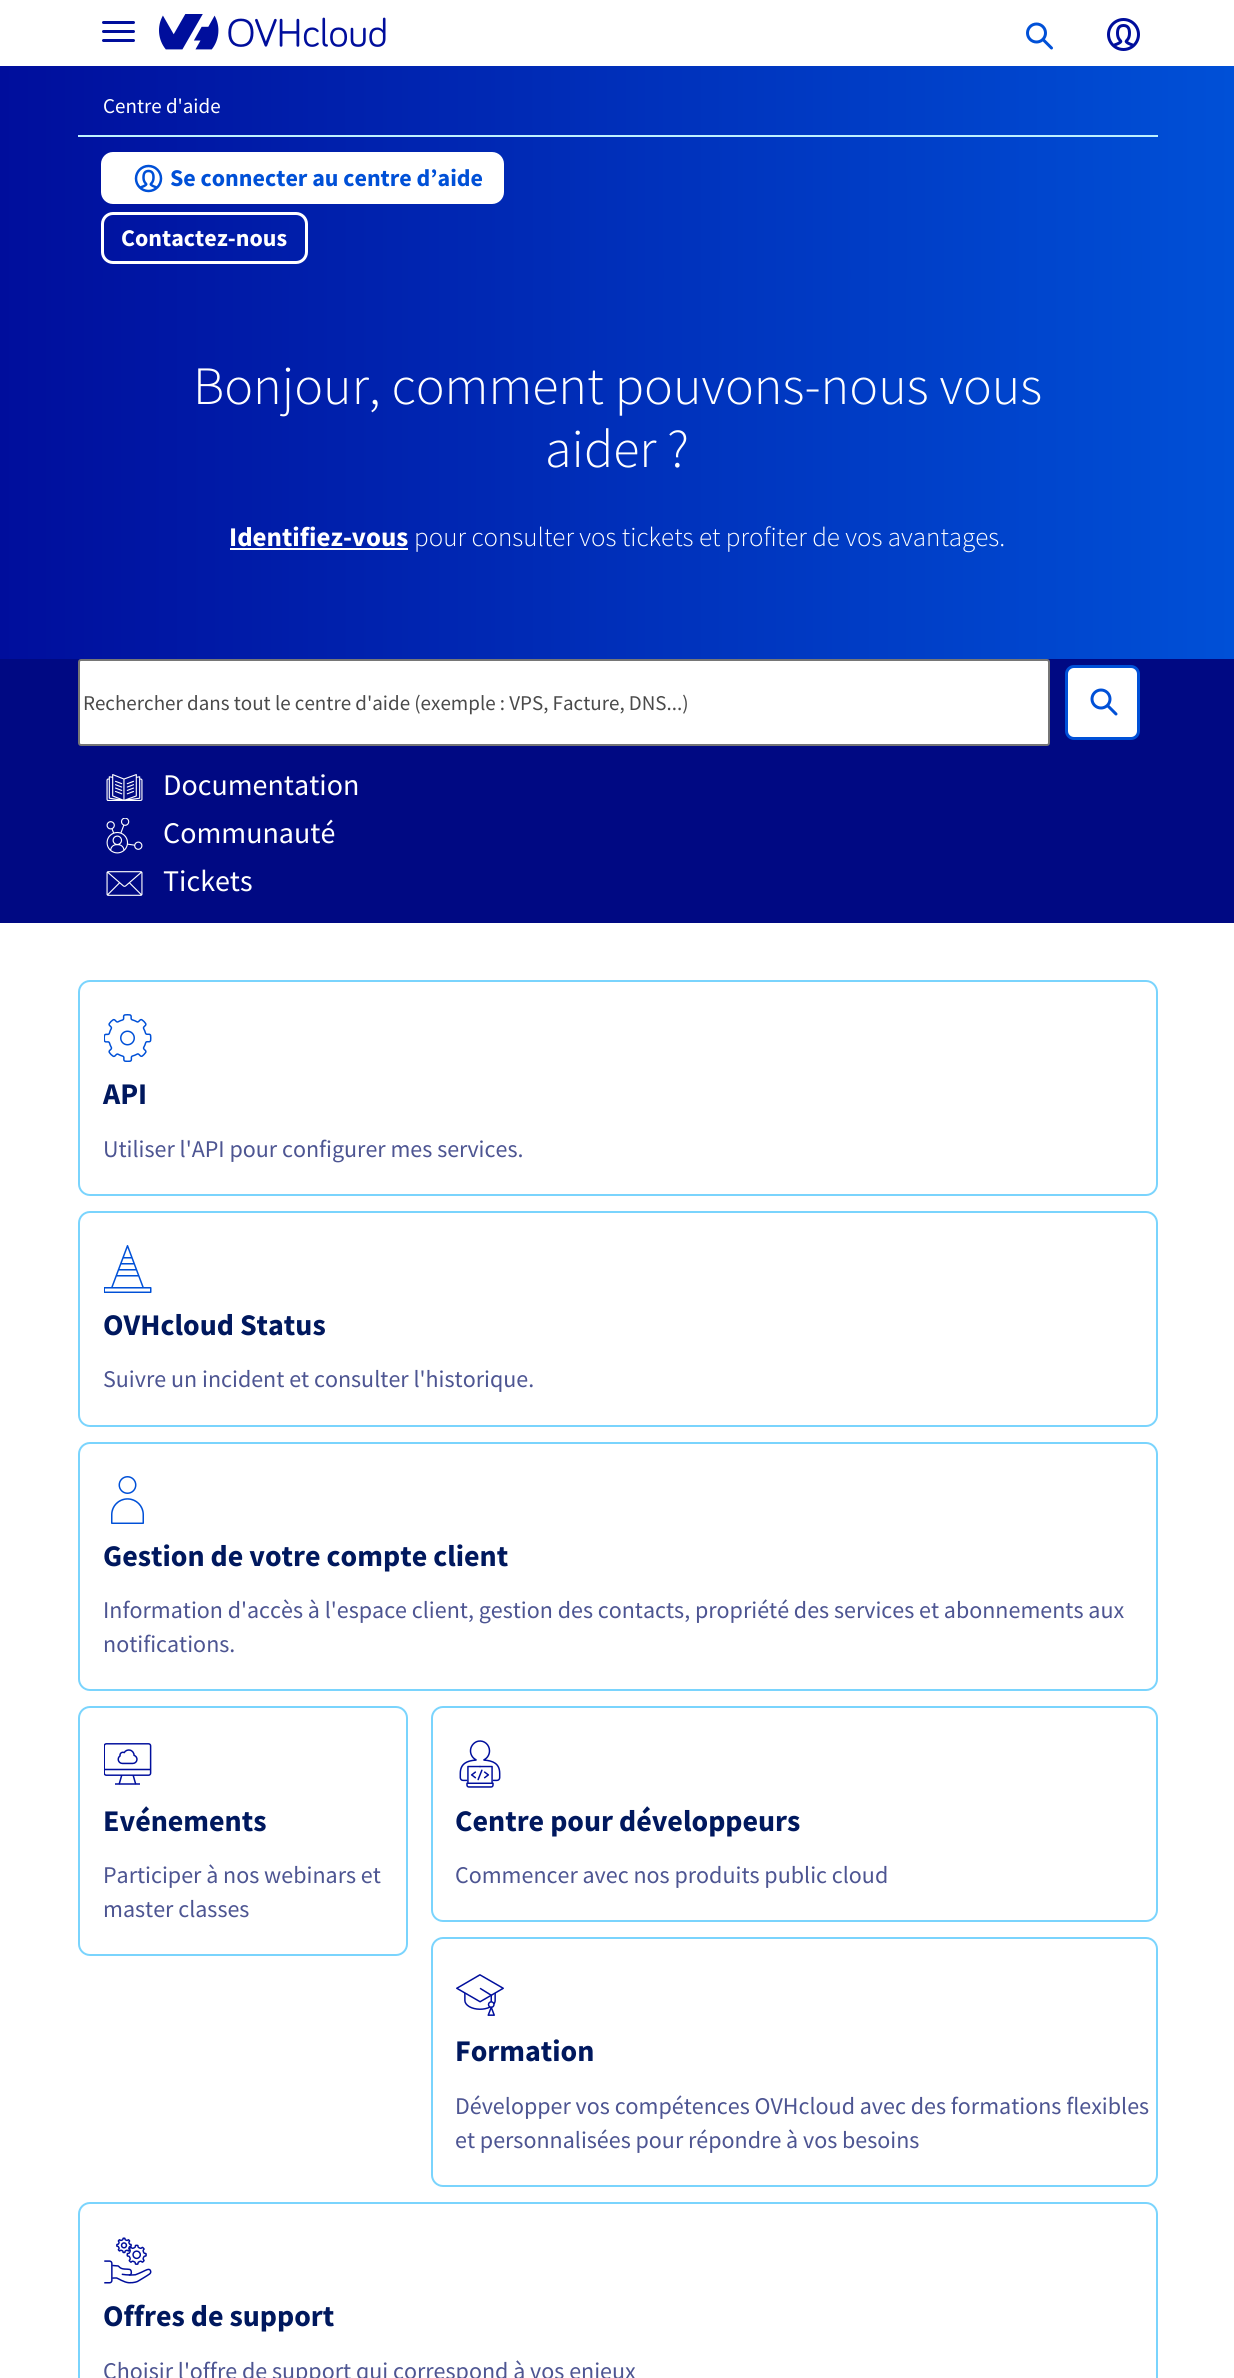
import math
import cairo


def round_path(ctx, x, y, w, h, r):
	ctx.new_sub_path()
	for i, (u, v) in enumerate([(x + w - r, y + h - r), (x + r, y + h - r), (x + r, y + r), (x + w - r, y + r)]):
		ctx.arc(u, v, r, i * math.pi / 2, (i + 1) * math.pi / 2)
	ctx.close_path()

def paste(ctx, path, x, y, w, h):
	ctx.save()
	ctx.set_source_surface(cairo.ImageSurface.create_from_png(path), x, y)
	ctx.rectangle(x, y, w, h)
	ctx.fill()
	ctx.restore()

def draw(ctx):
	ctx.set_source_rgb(1, 1, 1)
	ctx.paint()
	ctx.set_source_rgb(0, 0.055, 0.612)
	round_path(ctx, 102, 21, 33, 3, 1.5)
	ctx.fill()
	round_path(ctx, 102, 30, 33, 3, 1.5)
	ctx.fill()
	round_path(ctx, 102, 39, 33, 3, 1.5)
	ctx.fill()
	paste(ctx, 'media/1.png', 159, 14, 227, 36)
	paste(ctx, 'media/2.png', 1026, 22, 27, 28)
	paste(ctx, 'media/3.png', 1107, 18, 33, 33)
	gradient = cairo.LinearGradient(0, 140, 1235, 139)
	gradient.add_color_stop_rgba(0, 0, 0.055, 0.612, 1)
	gradient.add_color_stop_rgba(1, 0, 0.314, 0.843, 1)
	ctx.set_source(gradient)
	ctx.rectangle(0, 66, 1234, 213)
	ctx.fill()
	ctx.set_source_rgb(0.745, 0.945, 1)
	ctx.rectangle(78, 135, 1080, 2)
	ctx.fill()
	ctx.select_font_face('Source Sans Pro')
	ctx.set_font_size(21)
	ctx.set_source_rgb(1, 1, 1)
	ctx.move_to(103, 113)
	ctx.show_text('Centre d\'aide')
	round_path(ctx, 102.5, 153.5, 400, 49, 10.5)
	ctx.fill_preserve()
	ctx.set_line_width(3)
	ctx.stroke()
	paste(ctx, 'media/4.png', 134, 164, 29, 29)
	ctx.select_font_face('Source Sans Pro', cairo.FONT_SLANT_NORMAL, cairo.FONT_WEIGHT_BOLD)
	ctx.set_font_size(24)
	ctx.set_source_rgb(0, 0.314, 0.843)
	ctx.move_to(170, 186)
	ctx.show_text('Se connecter au centre d’aide')
	round_path(ctx, 102.5, 213.5, 204, 49, 10.5)
	ctx.set_source_rgb(1, 1, 1)
	ctx.stroke()
	ctx.move_to(121, 246)
	ctx.show_text('Contactez-nous')
	gradient = cairo.LinearGradient(0, 469, 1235, 469)
	gradient.add_color_stop_rgba(0, 0, 0.055, 0.612, 1)
	gradient.add_color_stop_rgba(1, 0, 0.314, 0.843, 1)
	ctx.set_source(gradient)
	ctx.rectangle(0, 279, 1234, 380)
	ctx.fill()
	ctx.select_font_face('Source Sans Pro Light')
	ctx.set_font_size(54)
	ctx.set_source_rgb(1, 1, 1)
	ctx.move_to(193, 404)
	ctx.show_text('Bonjour, comment pouvons-nous vous')
	ctx.move_to(545, 467)
	ctx.show_text('aider ?')
	ctx.select_font_face('Source Sans Pro', cairo.FONT_SLANT_NORMAL, cairo.FONT_WEIGHT_BOLD)
	ctx.set_font_size(27)
	ctx.move_to(229, 546)
	ctx.show_text('Identifiez-vous')
	ctx.rectangle(230, 548, 178, 2)
	ctx.fill()
	ctx.select_font_face('Source Sans Pro Light')
	ctx.move_to(414, 546)
	ctx.show_text('pour consulter vos tickets et profiter de vos avantages.')
	ctx.set_source_rgb(0, 0.039, 0.514)
	ctx.rectangle(0, 659, 1234, 264)
	ctx.fill()
	ctx.set_source_rgb(1, 1, 1)
	round_path(ctx, 79, 660, 970, 85, 2)
	ctx.fill_preserve()
	ctx.set_source_rgb(0.463, 0.463, 0.463)
	ctx.set_line_width(2)
	ctx.stroke()
	ctx.select_font_face('Source Sans Pro')
	ctx.set_font_size(21)
	ctx.set_source_rgb(0.29, 0.29, 0.29)
	ctx.move_to(83, 710)
	ctx.show_text('Rechercher dans tout le centre d\'aide (exemple : VPS, Facture, DNS...)')
	ctx.set_source_rgb(1, 1, 1)
	round_path(ctx, 1066.5, 666.5, 72, 72, 7.5)
	ctx.fill_preserve()
	ctx.set_source_rgb(0, 0.314, 0.843)
	ctx.set_line_width(3)
	ctx.stroke()
	paste(ctx, 'media/5.png', 1090, 688, 28, 28)
	paste(ctx, 'media/6.png', 106, 774, 37, 27)
	ctx.set_font_size(30)
	ctx.set_source_rgb(1, 1, 1)
	ctx.move_to(163, 795)
	ctx.show_text('Documentation')
	paste(ctx, 'media/7.png', 106, 818, 37, 36)
	ctx.move_to(163, 843)
	ctx.show_text('Communauté')
	paste(ctx, 'media/8.png', 106, 871, 37, 25)
	ctx.move_to(163, 891)
	ctx.show_text('Tickets')
	round_path(ctx, 79, 981, 1078, 214, 11)
	ctx.set_source_rgb(0.478, 0.831, 0.992)
	ctx.set_line_width(2)
	ctx.stroke()
	paste(ctx, 'media/9.png', 104, 1014, 48, 48)
	ctx.select_font_face('Source Sans Pro', cairo.FONT_SLANT_NORMAL, cairo.FONT_WEIGHT_BOLD)
	ctx.set_source_rgb(0, 0.094, 0.369)
	ctx.move_to(103, 1104)
	ctx.show_text('API')
	ctx.select_font_face('Source Sans Pro')
	ctx.set_font_size(24)
	ctx.set_source_rgb(0.302, 0.333, 0.573)
	ctx.move_to(103, 1157)
	ctx.show_text('Utiliser l\'API pour configurer mes services.')
	round_path(ctx, 79, 1212, 1078, 214, 11)
	ctx.set_source_rgb(0.478, 0.831, 0.992)
	ctx.stroke()
	paste(ctx, 'media/10.png', 104, 1245, 48, 48)
	ctx.select_font_face('Source Sans Pro', cairo.FONT_SLANT_NORMAL, cairo.FONT_WEIGHT_BOLD)
	ctx.set_font_size(30)
	ctx.set_source_rgb(0, 0.094, 0.369)
	ctx.move_to(103, 1335)
	ctx.show_text('OVHcloud Status')
	ctx.select_font_face('Source Sans Pro')
	ctx.set_font_size(24)
	ctx.set_source_rgb(0.302, 0.333, 0.573)
	ctx.move_to(103, 1387)
	ctx.show_text('Suivre un incident et consulter l\'historique.')
	round_path(ctx, 79, 1443, 1078, 247, 11)
	ctx.set_source_rgb(0.478, 0.831, 0.992)
	ctx.stroke()
	paste(ctx, 'media/11.png', 111, 1476, 33, 48)
	ctx.select_font_face('Source Sans Pro', cairo.FONT_SLANT_NORMAL, cairo.FONT_WEIGHT_BOLD)
	ctx.set_font_size(30)
	ctx.set_source_rgb(0, 0.094, 0.369)
	ctx.move_to(103, 1566)
	ctx.show_text('Gestion de votre compte client')
	ctx.select_font_face('Source Sans Pro')
	ctx.set_font_size(24)
	ctx.set_source_rgb(0.302, 0.333, 0.573)
	ctx.move_to(103, 1618)
	ctx.show_text('Information d\'accès à l\'espace client, gestion des contacts, propriété des services et abonnements aux')
	ctx.move_to(103, 1652)
	ctx.show_text('notifications.')
	round_path(ctx, 79, 1707, 328, 248, 11)
	ctx.set_source_rgb(0.478, 0.831, 0.992)
	ctx.stroke()
	paste(ctx, 'media/12.png', 104, 1743, 48, 42)
	ctx.select_font_face('Source Sans Pro', cairo.FONT_SLANT_NORMAL, cairo.FONT_WEIGHT_BOLD)
	ctx.set_font_size(30)
	ctx.set_source_rgb(0, 0.094, 0.369)
	ctx.move_to(103, 1831)
	ctx.show_text('Evénements')
	ctx.select_font_face('Source Sans Pro')
	ctx.set_font_size(24)
	ctx.set_source_rgb(0.302, 0.333, 0.573)
	ctx.move_to(103, 1883)
	ctx.show_text('Participer à nos webinars et')
	ctx.move_to(103, 1917)
	ctx.show_text('master classes')
	round_path(ctx, 432, 1707, 725, 214, 11)
	ctx.set_source_rgb(0.478, 0.831, 0.992)
	ctx.stroke()
	paste(ctx, 'media/13.png', 459, 1740, 42, 48)
	ctx.select_font_face('Source Sans Pro', cairo.FONT_SLANT_NORMAL, cairo.FONT_WEIGHT_BOLD)
	ctx.set_font_size(30)
	ctx.set_source_rgb(0, 0.094, 0.369)
	ctx.move_to(455, 1831)
	ctx.show_text('Centre pour développeurs')
	ctx.select_font_face('Source Sans Pro')
	ctx.set_font_size(24)
	ctx.set_source_rgb(0.302, 0.333, 0.573)
	ctx.move_to(455, 1883)
	ctx.show_text('Commencer avec nos produits public cloud')
	round_path(ctx, 432, 1938, 725, 248, 11)
	ctx.set_source_rgb(0.478, 0.831, 0.992)
	ctx.stroke()
	paste(ctx, 'media/14.png', 456, 1974, 48, 42)
	ctx.select_font_face('Source Sans Pro', cairo.FONT_SLANT_NORMAL, cairo.FONT_WEIGHT_BOLD)
	ctx.set_font_size(30)
	ctx.set_source_rgb(0, 0.094, 0.369)
	ctx.move_to(455, 2061)
	ctx.show_text('Formation')
	ctx.select_font_face('Source Sans Pro')
	ctx.set_font_size(24)
	ctx.set_source_rgb(0.302, 0.333, 0.573)
	ctx.move_to(455, 2114)
	ctx.show_text('Développer vos compétences OVHcloud avec des formations flexibles')
	ctx.move_to(455, 2148)
	ctx.show_text('et personnalisées pour répondre à vos besoins')
	round_path(ctx, 79, 2203, 1078, 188, 11)
	ctx.set_source_rgb(0.478, 0.831, 0.992)
	ctx.stroke()
	paste(ctx, 'media/15.png', 104, 2237, 48, 47)
	ctx.select_font_face('Source Sans Pro', cairo.FONT_SLANT_NORMAL, cairo.FONT_WEIGHT_BOLD)
	ctx.set_font_size(30)
	ctx.set_source_rgb(0, 0.094, 0.369)
	ctx.move_to(103, 2326)
	ctx.show_text('Offres de support')
	ctx.select_font_face('Source Sans Pro')
	ctx.set_font_size(24)
	ctx.set_source_rgb(0.302, 0.333, 0.573)
	ctx.move_to(103, 2379)
	ctx.show_text('Choisir l\'offre de support qui correspond à vos enjeux')


surface = cairo.ImageSurface(cairo.FORMAT_RGB24, 1234, 2378)
ctx = cairo.Context(surface)
options = cairo.FontOptions()
options.set_hint_metrics(cairo.HINT_METRICS_OFF)
options.set_hint_style(cairo.HINT_STYLE_NONE)
ctx.set_font_options(options)
ctx.set_miter_limit(4)
draw(ctx)
surface.write_to_png('image.png')
